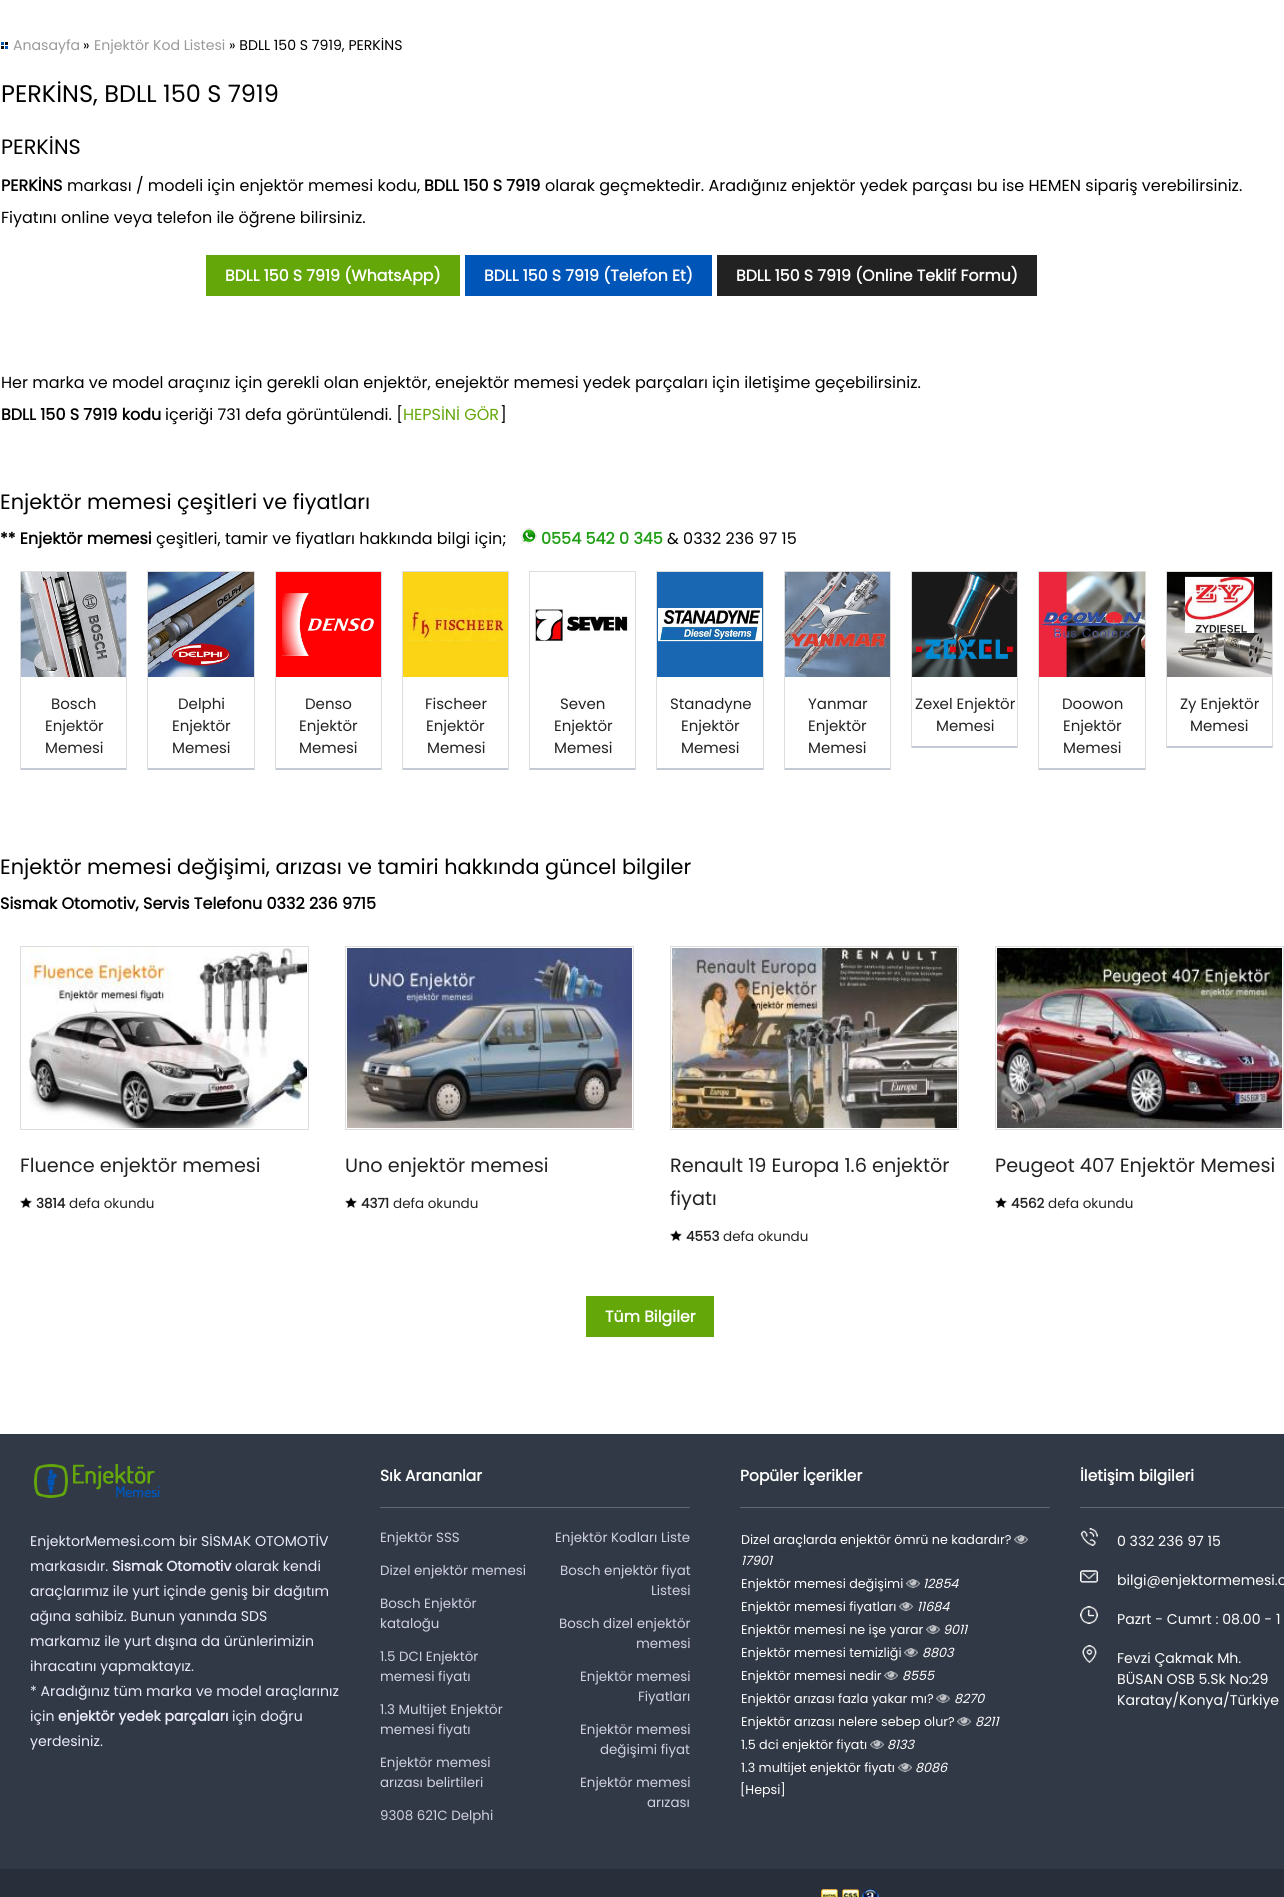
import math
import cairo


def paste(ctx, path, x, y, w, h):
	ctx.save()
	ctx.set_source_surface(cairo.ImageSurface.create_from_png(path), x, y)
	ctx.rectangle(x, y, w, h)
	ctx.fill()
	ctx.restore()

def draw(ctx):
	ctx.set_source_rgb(1, 1, 1)
	ctx.paint()
	paste(ctx, 'media/1.png', 1, 42, 7, 7)
	ctx.select_font_face('Poppins')
	ctx.set_font_size(14.1)
	ctx.set_source_rgb(0.6, 0.6, 0.6)
	ctx.move_to(13, 50)
	ctx.show_text('Anasayfa')
	ctx.set_source_rgb(0, 0, 0)
	ctx.move_to(83, 50)
	ctx.show_text('»')
	ctx.set_source_rgb(0.6, 0.6, 0.6)
	ctx.move_to(94, 50)
	ctx.show_text('Enjektör Kod Listesi')
	ctx.set_source_rgb(0, 0, 0)
	ctx.move_to(229, 50)
	ctx.show_text('» BDLL 150 S 7919, PERKİNS')
	ctx.set_font_size(24)
	ctx.move_to(1, 102)
	ctx.show_text('PERKİNS, BDLL 150 S 7919')
	ctx.set_font_size(20.8)
	ctx.move_to(1, 154)
	ctx.show_text('PERKİNS')
	ctx.select_font_face('Poppins', cairo.FONT_SLANT_NORMAL, cairo.FONT_WEIGHT_BOLD)
	ctx.set_font_size(16)
	ctx.move_to(1, 191)
	ctx.show_text('PERKİNS')
	ctx.select_font_face('Poppins')
	ctx.move_to(67, 191)
	ctx.show_text('markası / modeli için enjektör memesi kodu,')
	ctx.select_font_face('Poppins', cairo.FONT_SLANT_NORMAL, cairo.FONT_WEIGHT_BOLD)
	ctx.move_to(424, 191)
	ctx.show_text('BDLL 150 S 7919')
	ctx.select_font_face('Poppins')
	ctx.move_to(545, 191)
	ctx.show_text('olarak geçmektedir. Aradığınız enjektör yedek parçası bu ise HEMEN sipariş verebilirsiniz.')
	ctx.move_to(1, 223)
	ctx.show_text('Fiyatını online veya telefon ile öğrene bilirsiniz.')
	ctx.set_source_rgb(0.388, 0.655, 0.039)
	ctx.rectangle(206, 255, 254, 41)
	ctx.fill()
	ctx.select_font_face('Poppins', cairo.FONT_SLANT_NORMAL, cairo.FONT_WEIGHT_BOLD)
	ctx.set_font_size(15.8)
	ctx.set_source_rgb(1, 1, 1)
	ctx.move_to(225, 281)
	ctx.show_text('BDLL 150 S 7919 (WhatsApp)')
	ctx.set_source_rgb(0, 0.333, 0.722)
	ctx.rectangle(465, 255, 247, 41)
	ctx.fill()
	ctx.set_source_rgb(1, 1, 1)
	ctx.move_to(484, 281)
	ctx.show_text('BDLL 150 S 7919 (Telefon Et)')
	ctx.set_source_rgb(0.133, 0.133, 0.133)
	ctx.rectangle(717, 255, 320, 41)
	ctx.fill()
	ctx.set_source_rgb(1, 1, 1)
	ctx.move_to(736, 281)
	ctx.show_text('BDLL 150 S 7919 (Online Teklif Formu)')
	ctx.select_font_face('Poppins')
	ctx.set_font_size(16)
	ctx.set_source_rgb(0, 0, 0)
	ctx.move_to(1, 388)
	ctx.show_text('Her marka ve model araçınız için gerekli olan enjektör, enejektör memesi yedek parçaları için iletişime geçebilirsiniz.')
	ctx.select_font_face('Poppins', cairo.FONT_SLANT_NORMAL, cairo.FONT_WEIGHT_BOLD)
	ctx.move_to(1, 420)
	ctx.show_text('BDLL 150 S 7919 kodu')
	ctx.select_font_face('Poppins')
	ctx.move_to(165, 420)
	ctx.show_text('içeriği 731 defa görüntülendi. [')
	ctx.set_source_rgb(0.388, 0.655, 0.039)
	ctx.move_to(403, 420)
	ctx.show_text('HEPSİNİ GÖR')
	ctx.set_source_rgb(0, 0, 0)
	ctx.move_to(500, 420)
	ctx.show_text(']')
	ctx.set_font_size(20.8)
	ctx.move_to(0, 509)
	ctx.show_text('Enjektör memesi çeşitleri ve fiyatları')
	ctx.select_font_face('Poppins', cairo.FONT_SLANT_NORMAL, cairo.FONT_WEIGHT_BOLD)
	ctx.set_font_size(16)
	ctx.move_to(0, 544)
	ctx.show_text('** Enjektör memesi')
	ctx.select_font_face('Poppins')
	ctx.move_to(156, 544)
	ctx.show_text('çeşitleri, tamir ve fiyatları hakkında bilgi için;')
	paste(ctx, 'media/2.png', 521, 528, 16, 16)
	ctx.select_font_face('Poppins', cairo.FONT_SLANT_NORMAL, cairo.FONT_WEIGHT_BOLD)
	ctx.set_source_rgb(0.129, 0.624, 0.086)
	ctx.move_to(541, 544)
	ctx.show_text('0554 542 0 345')
	ctx.select_font_face('Poppins')
	ctx.set_source_rgb(0, 0, 0)
	ctx.move_to(667, 544)
	ctx.show_text('& 0332 236 97 15')
	ctx.set_source_rgb(0.867, 0.867, 0.867)
	ctx.rectangle(20, 571, 107, 1)
	ctx.fill()
	ctx.new_path()
	ctx.move_to(127, 571)
	ctx.line_to(127, 770)
	ctx.line_to(126, 768)
	ctx.line_to(126, 572)
	ctx.close_path()
	ctx.fill()
	ctx.set_source_rgb(0.769, 0.792, 0.827)
	ctx.new_path()
	ctx.move_to(127, 770)
	ctx.line_to(20, 770)
	ctx.line_to(21, 768)
	ctx.line_to(126, 768)
	ctx.close_path()
	ctx.fill()
	ctx.set_source_rgb(0.867, 0.867, 0.867)
	ctx.new_path()
	ctx.move_to(20, 770)
	ctx.line_to(20, 571)
	ctx.line_to(21, 572)
	ctx.line_to(21, 768)
	ctx.close_path()
	ctx.fill()
	paste(ctx, 'media/3.png', 21, 572, 105, 105)
	ctx.set_font_size(15)
	ctx.set_source_rgb(0.133, 0.133, 0.133)
	for x, y, s in [
		(51, 709, 'Bosch'),
		(45, 731, 'Enjektör'),
		(45, 753, 'Memesi'),
	]:
		ctx.move_to(x, y)
		ctx.show_text(s)
	ctx.set_source_rgb(0.867, 0.867, 0.867)
	ctx.rectangle(147, 571, 108, 1)
	ctx.fill()
	ctx.new_path()
	ctx.move_to(255, 571)
	ctx.line_to(255, 770)
	ctx.line_to(254, 768)
	ctx.line_to(254, 572)
	ctx.close_path()
	ctx.fill()
	ctx.set_source_rgb(0.769, 0.792, 0.827)
	ctx.new_path()
	ctx.move_to(255, 770)
	ctx.line_to(147, 770)
	ctx.line_to(148, 768)
	ctx.line_to(254, 768)
	ctx.close_path()
	ctx.fill()
	ctx.set_source_rgb(0.867, 0.867, 0.867)
	ctx.new_path()
	ctx.move_to(147, 770)
	ctx.line_to(147, 571)
	ctx.line_to(148, 572)
	ctx.line_to(148, 768)
	ctx.close_path()
	ctx.fill()
	paste(ctx, 'media/4.png', 148, 572, 106, 105)
	ctx.set_source_rgb(0.133, 0.133, 0.133)
	for x, y, s in [
		(178, 709, 'Delphi'),
		(172, 731, 'Enjektör'),
		(172, 753, 'Memesi'),
	]:
		ctx.move_to(x, y)
		ctx.show_text(s)
	ctx.set_source_rgb(0.867, 0.867, 0.867)
	ctx.rectangle(275, 571, 107, 1)
	ctx.fill()
	ctx.new_path()
	ctx.move_to(382, 571)
	ctx.line_to(382, 770)
	ctx.line_to(381, 768)
	ctx.line_to(381, 572)
	ctx.close_path()
	ctx.fill()
	ctx.set_source_rgb(0.769, 0.792, 0.827)
	ctx.new_path()
	ctx.move_to(382, 770)
	ctx.line_to(275, 770)
	ctx.line_to(276, 768)
	ctx.line_to(381, 768)
	ctx.close_path()
	ctx.fill()
	ctx.set_source_rgb(0.867, 0.867, 0.867)
	ctx.new_path()
	ctx.move_to(275, 770)
	ctx.line_to(275, 571)
	ctx.line_to(276, 572)
	ctx.line_to(276, 768)
	ctx.close_path()
	ctx.fill()
	paste(ctx, 'media/5.png', 276, 572, 105, 105)
	ctx.set_source_rgb(0.133, 0.133, 0.133)
	for x, y, s in [
		(305, 709, 'Denso'),
		(299, 731, 'Enjektör'),
		(299, 753, 'Memesi'),
	]:
		ctx.move_to(x, y)
		ctx.show_text(s)
	ctx.set_source_rgb(0.867, 0.867, 0.867)
	ctx.rectangle(402, 571, 107, 1)
	ctx.fill()
	ctx.new_path()
	ctx.move_to(509, 571)
	ctx.line_to(509, 770)
	ctx.line_to(508, 768)
	ctx.line_to(508, 572)
	ctx.close_path()
	ctx.fill()
	ctx.set_source_rgb(0.769, 0.792, 0.827)
	ctx.new_path()
	ctx.move_to(509, 770)
	ctx.line_to(402, 770)
	ctx.line_to(403, 768)
	ctx.line_to(508, 768)
	ctx.close_path()
	ctx.fill()
	ctx.set_source_rgb(0.867, 0.867, 0.867)
	ctx.new_path()
	ctx.move_to(402, 770)
	ctx.line_to(402, 571)
	ctx.line_to(403, 572)
	ctx.line_to(403, 768)
	ctx.close_path()
	ctx.fill()
	paste(ctx, 'media/6.png', 403, 572, 105, 105)
	ctx.set_source_rgb(0.133, 0.133, 0.133)
	for x, y, s in [
		(425, 709, 'Fischeer'),
		(426, 731, 'Enjektör'),
		(427, 753, 'Memesi'),
	]:
		ctx.move_to(x, y)
		ctx.show_text(s)
	ctx.set_source_rgb(0.867, 0.867, 0.867)
	ctx.rectangle(529, 571, 107, 1)
	ctx.fill()
	ctx.new_path()
	ctx.move_to(636, 571)
	ctx.line_to(636, 770)
	ctx.line_to(635, 768)
	ctx.line_to(635, 572)
	ctx.close_path()
	ctx.fill()
	ctx.set_source_rgb(0.769, 0.792, 0.827)
	ctx.new_path()
	ctx.move_to(636, 770)
	ctx.line_to(529, 770)
	ctx.line_to(530, 768)
	ctx.line_to(635, 768)
	ctx.close_path()
	ctx.fill()
	ctx.set_source_rgb(0.867, 0.867, 0.867)
	ctx.new_path()
	ctx.move_to(529, 770)
	ctx.line_to(529, 571)
	ctx.line_to(530, 572)
	ctx.line_to(530, 768)
	ctx.close_path()
	ctx.fill()
	paste(ctx, 'media/7.png', 534, 608, 96, 35)
	ctx.set_source_rgb(0.133, 0.133, 0.133)
	for x, y, s in [
		(560, 709, 'Seven'),
		(554, 731, 'Enjektör'),
		(554, 753, 'Memesi'),
	]:
		ctx.move_to(x, y)
		ctx.show_text(s)
	ctx.set_source_rgb(0.867, 0.867, 0.867)
	ctx.rectangle(656, 571, 108, 1)
	ctx.fill()
	ctx.new_path()
	ctx.move_to(764, 571)
	ctx.line_to(764, 770)
	ctx.line_to(763, 768)
	ctx.line_to(763, 572)
	ctx.close_path()
	ctx.fill()
	ctx.set_source_rgb(0.769, 0.792, 0.827)
	ctx.new_path()
	ctx.move_to(764, 770)
	ctx.line_to(656, 770)
	ctx.line_to(657, 768)
	ctx.line_to(763, 768)
	ctx.close_path()
	ctx.fill()
	ctx.set_source_rgb(0.867, 0.867, 0.867)
	ctx.new_path()
	ctx.move_to(656, 770)
	ctx.line_to(656, 571)
	ctx.line_to(657, 572)
	ctx.line_to(657, 768)
	ctx.close_path()
	ctx.fill()
	paste(ctx, 'media/8.png', 657, 572, 106, 105)
	ctx.set_source_rgb(0.133, 0.133, 0.133)
	for x, y, s in [
		(670, 709, 'Stanadyne'),
		(681, 731, 'Enjektör'),
		(681, 753, 'Memesi'),
	]:
		ctx.move_to(x, y)
		ctx.show_text(s)
	ctx.set_source_rgb(0.867, 0.867, 0.867)
	ctx.rectangle(784, 571, 107, 1)
	ctx.fill()
	ctx.new_path()
	ctx.move_to(891, 571)
	ctx.line_to(891, 770)
	ctx.line_to(890, 768)
	ctx.line_to(890, 572)
	ctx.close_path()
	ctx.fill()
	ctx.set_source_rgb(0.769, 0.792, 0.827)
	ctx.new_path()
	ctx.move_to(891, 770)
	ctx.line_to(784, 770)
	ctx.line_to(785, 768)
	ctx.line_to(890, 768)
	ctx.close_path()
	ctx.fill()
	ctx.set_source_rgb(0.867, 0.867, 0.867)
	ctx.new_path()
	ctx.move_to(784, 770)
	ctx.line_to(784, 571)
	ctx.line_to(785, 572)
	ctx.line_to(785, 768)
	ctx.close_path()
	ctx.fill()
	paste(ctx, 'media/9.png', 785, 572, 105, 105)
	ctx.set_source_rgb(0.133, 0.133, 0.133)
	for x, y, s in [
		(808, 709, 'Yanmar'),
		(808, 731, 'Enjektör'),
		(808, 753, 'Memesi'),
	]:
		ctx.move_to(x, y)
		ctx.show_text(s)
	ctx.set_source_rgb(0.867, 0.867, 0.867)
	ctx.rectangle(911, 571, 107, 1)
	ctx.fill()
	ctx.new_path()
	ctx.move_to(1018, 571)
	ctx.line_to(1018, 748)
	ctx.line_to(1017, 746)
	ctx.line_to(1017, 572)
	ctx.close_path()
	ctx.fill()
	ctx.set_source_rgb(0.769, 0.792, 0.827)
	ctx.new_path()
	ctx.move_to(1018, 748)
	ctx.line_to(911, 748)
	ctx.line_to(912, 746)
	ctx.line_to(1017, 746)
	ctx.close_path()
	ctx.fill()
	ctx.set_source_rgb(0.867, 0.867, 0.867)
	ctx.new_path()
	ctx.move_to(911, 748)
	ctx.line_to(911, 571)
	ctx.line_to(912, 572)
	ctx.line_to(912, 746)
	ctx.close_path()
	ctx.fill()
	paste(ctx, 'media/10.png', 912, 572, 105, 105)
	ctx.set_source_rgb(0.133, 0.133, 0.133)
	ctx.move_to(915, 709)
	ctx.show_text('Zexel Enjektör')
	ctx.move_to(936, 731)
	ctx.show_text('Memesi')
	ctx.set_source_rgb(0.867, 0.867, 0.867)
	ctx.rectangle(1038, 571, 108, 1)
	ctx.fill()
	ctx.new_path()
	ctx.move_to(1146, 571)
	ctx.line_to(1146, 770)
	ctx.line_to(1145, 768)
	ctx.line_to(1145, 572)
	ctx.close_path()
	ctx.fill()
	ctx.set_source_rgb(0.769, 0.792, 0.827)
	ctx.new_path()
	ctx.move_to(1146, 770)
	ctx.line_to(1038, 770)
	ctx.line_to(1039, 768)
	ctx.line_to(1145, 768)
	ctx.close_path()
	ctx.fill()
	ctx.set_source_rgb(0.867, 0.867, 0.867)
	ctx.new_path()
	ctx.move_to(1038, 770)
	ctx.line_to(1038, 571)
	ctx.line_to(1039, 572)
	ctx.line_to(1039, 768)
	ctx.close_path()
	ctx.fill()
	paste(ctx, 'media/11.png', 1039, 572, 106, 105)
	ctx.set_source_rgb(0.133, 0.133, 0.133)
	for x, y, s in [
		(1062, 709, 'Doowon'),
		(1063, 731, 'Enjektör'),
		(1063, 753, 'Memesi'),
	]:
		ctx.move_to(x, y)
		ctx.show_text(s)
	ctx.set_source_rgb(0.867, 0.867, 0.867)
	ctx.rectangle(1166, 571, 107, 1)
	ctx.fill()
	ctx.new_path()
	ctx.move_to(1273, 571)
	ctx.line_to(1273, 748)
	ctx.line_to(1272, 746)
	ctx.line_to(1272, 572)
	ctx.close_path()
	ctx.fill()
	ctx.set_source_rgb(0.769, 0.792, 0.827)
	ctx.new_path()
	ctx.move_to(1273, 748)
	ctx.line_to(1166, 748)
	ctx.line_to(1167, 746)
	ctx.line_to(1272, 746)
	ctx.close_path()
	ctx.fill()
	ctx.set_source_rgb(0.867, 0.867, 0.867)
	ctx.new_path()
	ctx.move_to(1166, 748)
	ctx.line_to(1166, 571)
	ctx.line_to(1167, 572)
	ctx.line_to(1167, 746)
	ctx.close_path()
	ctx.fill()
	paste(ctx, 'media/12.png', 1167, 572, 105, 105)
	ctx.set_source_rgb(0.133, 0.133, 0.133)
	ctx.move_to(1180, 709)
	ctx.show_text('Zy Enjektör')
	ctx.move_to(1190, 731)
	ctx.show_text('Memesi')
	ctx.set_font_size(20.8)
	ctx.set_source_rgb(0, 0, 0)
	ctx.move_to(0, 874)
	ctx.show_text('Enjektör memesi değişimi, arızası ve tamiri hakkında güncel bilgiler')
	ctx.select_font_face('Poppins', cairo.FONT_SLANT_NORMAL, cairo.FONT_WEIGHT_BOLD)
	ctx.set_font_size(16)
	ctx.move_to(0, 909)
	ctx.show_text('Sismak Otomotiv, Servis Telefonu 0332 236 9715')
	ctx.rectangle(20.5, 946.5, 288, 183)
	ctx.set_source_rgb(0.867, 0.867, 0.867)
	ctx.set_line_width(1)
	ctx.stroke()
	paste(ctx, 'media/13.png', 22, 948, 285, 180)
	ctx.select_font_face('Poppins')
	ctx.set_font_size(19.25)
	ctx.set_source_rgb(0.133, 0.133, 0.133)
	ctx.move_to(20, 1172)
	ctx.show_text('Fluence enjektör memesi')
	paste(ctx, 'media/14.png', 20, 1197, 12, 11)
	ctx.select_font_face('Poppins', cairo.FONT_SLANT_NORMAL, cairo.FONT_WEIGHT_BOLD)
	ctx.set_font_size(13.5)
	ctx.move_to(36, 1208)
	ctx.show_text('3814')
	ctx.select_font_face('Poppins')
	ctx.move_to(69, 1208)
	ctx.show_text('defa okundu')
	ctx.rectangle(345.5, 946.5, 288, 183)
	ctx.set_source_rgb(0.867, 0.867, 0.867)
	ctx.stroke()
	paste(ctx, 'media/15.png', 347, 948, 285, 180)
	ctx.set_font_size(19.25)
	ctx.set_source_rgb(0.133, 0.133, 0.133)
	ctx.move_to(345, 1172)
	ctx.show_text('Uno enjektör memesi')
	paste(ctx, 'media/14.png', 345, 1197, 12, 11)
	ctx.select_font_face('Poppins', cairo.FONT_SLANT_NORMAL, cairo.FONT_WEIGHT_BOLD)
	ctx.set_font_size(13.5)
	ctx.move_to(361, 1208)
	ctx.show_text('4371')
	ctx.select_font_face('Poppins')
	ctx.move_to(393, 1208)
	ctx.show_text('defa okundu')
	ctx.rectangle(670.5, 946.5, 288, 183)
	ctx.set_source_rgb(0.867, 0.867, 0.867)
	ctx.stroke()
	paste(ctx, 'media/16.png', 672, 948, 285, 180)
	ctx.set_font_size(19.25)
	ctx.set_source_rgb(0.133, 0.133, 0.133)
	ctx.move_to(670, 1172)
	ctx.show_text('Renault 19 Europa 1.6 enjektör')
	ctx.move_to(670, 1205)
	ctx.show_text('fiyatı')
	paste(ctx, 'media/14.png', 670, 1230, 12, 11)
	ctx.select_font_face('Poppins', cairo.FONT_SLANT_NORMAL, cairo.FONT_WEIGHT_BOLD)
	ctx.set_font_size(13.5)
	ctx.move_to(686, 1241)
	ctx.show_text('4553')
	ctx.select_font_face('Poppins')
	ctx.move_to(723, 1241)
	ctx.show_text('defa okundu')
	ctx.rectangle(995.5, 946.5, 288, 183)
	ctx.set_source_rgb(0.867, 0.867, 0.867)
	ctx.stroke()
	paste(ctx, 'media/17.png', 997, 948, 285, 180)
	ctx.set_font_size(19.25)
	ctx.set_source_rgb(0.133, 0.133, 0.133)
	ctx.move_to(995, 1172)
	ctx.show_text('Peugeot 407 Enjektör Memesi')
	paste(ctx, 'media/14.png', 995, 1197, 12, 11)
	ctx.select_font_face('Poppins', cairo.FONT_SLANT_NORMAL, cairo.FONT_WEIGHT_BOLD)
	ctx.set_font_size(13.5)
	ctx.move_to(1011, 1208)
	ctx.show_text('4562')
	ctx.select_font_face('Poppins')
	ctx.move_to(1048, 1208)
	ctx.show_text('defa okundu')
	ctx.set_source_rgb(0.388, 0.655, 0.039)
	ctx.rectangle(586, 1296, 128, 41)
	ctx.fill()
	ctx.select_font_face('Poppins', cairo.FONT_SLANT_NORMAL, cairo.FONT_WEIGHT_BOLD)
	ctx.set_font_size(15.8)
	ctx.set_source_rgb(1, 1, 1)
	ctx.move_to(605, 1322)
	ctx.show_text('Tüm Bilgiler')
	ctx.set_source_rgb(0.196, 0.224, 0.275)
	ctx.rectangle(0, 1434, 1284, 435)
	ctx.fill()
	paste(ctx, 'media/18.png', 34, 1464, 126, 34)
	ctx.select_font_face('Poppins')
	ctx.set_font_size(14.1)
	ctx.set_source_rgb(0.925, 0.925, 0.984)
	ctx.move_to(30, 1546)
	ctx.show_text('EnjektorMemesi.com bir SİSMAK OTOMOTİV')
	ctx.move_to(30, 1571)
	ctx.show_text('markasıdır.')
	ctx.select_font_face('Poppins', cairo.FONT_SLANT_NORMAL, cairo.FONT_WEIGHT_BOLD)
	ctx.move_to(112, 1571)
	ctx.show_text('Sismak Otomotiv')
	ctx.select_font_face('Poppins')
	for x, y, s in [
		(235, 1571, 'olarak kendi'),
		(30, 1596, 'araçlarımız ile yurt içinde geniş bir dağıtım'),
		(30, 1621, 'ağına sahibiz. Bunun yanında SDS'),
		(30, 1646, 'markamız ile yurt dışına da ürünlerimizin'),
		(30, 1671, 'ihracatını yapmaktayız.'),
		(30, 1696, '* Aradığınız tüm marka ve model araçlarınız'),
		(30, 1721, 'için'),
	]:
		ctx.move_to(x, y)
		ctx.show_text(s)
	ctx.select_font_face('Poppins', cairo.FONT_SLANT_NORMAL, cairo.FONT_WEIGHT_BOLD)
	ctx.move_to(58, 1721)
	ctx.show_text('enjektör yedek parçaları')
	ctx.select_font_face('Poppins')
	ctx.move_to(232, 1721)
	ctx.show_text('için doğru')
	ctx.move_to(30, 1746)
	ctx.show_text('yerdesiniz.')
	ctx.set_source_rgb(0.38, 0.408, 0.451)
	ctx.rectangle(380, 1507, 310, 1)
	ctx.fill()
	ctx.select_font_face('Poppins', cairo.FONT_SLANT_NORMAL, cairo.FONT_WEIGHT_BOLD)
	ctx.set_font_size(15.5)
	ctx.set_source_rgb(1, 1, 1)
	ctx.move_to(380, 1481)
	ctx.show_text('Sık Arananlar')
	ctx.select_font_face('Poppins')
	ctx.set_font_size(13.4)
	ctx.set_source_rgb(0.82, 0.82, 0.894)
	for x, y, s in [
		(380, 1542, 'Enjektör SSS'),
		(380, 1575, 'Dizel enjektör memesi'),
		(380, 1608, 'Bosch Enjektör'),
		(380, 1628, 'kataloğu'),
		(380, 1661, '1.5 DCI Enjektör'),
		(380, 1681, 'memesi fiyatı'),
		(380, 1714, '1.3 Multijet Enjektör'),
		(380, 1734, 'memesi fiyatı'),
		(380, 1767, 'Enjektör memesi'),
		(380, 1787, 'arızası belirtileri'),
		(380, 1820, '9308 621C Delphi'),
		(555, 1542, 'Enjektör Kodları Liste'),
		(560, 1575, 'Bosch enjektör fiyat'),
		(651, 1595, 'Listesi'),
		(559, 1628, 'Bosch dizel enjektör'),
		(636, 1648, 'memesi'),
		(580, 1681, 'Enjektör memesi'),
		(638, 1701, 'Fiyatları'),
		(580, 1734, 'Enjektör memesi'),
		(600, 1754, 'değişimi fiyat'),
		(580, 1787, 'Enjektör memesi'),
		(647, 1807, 'arızası'),
	]:
		ctx.move_to(x, y)
		ctx.show_text(s)
	ctx.set_source_rgb(0.38, 0.408, 0.451)
	ctx.rectangle(740, 1507, 310, 1)
	ctx.fill()
	ctx.select_font_face('Poppins', cairo.FONT_SLANT_NORMAL, cairo.FONT_WEIGHT_BOLD)
	ctx.set_font_size(15.5)
	ctx.set_source_rgb(1, 1, 1)
	ctx.move_to(740, 1481)
	ctx.show_text('Popüler İçerikler')
	ctx.select_font_face('Poppins')
	ctx.set_font_size(12.7)
	ctx.move_to(741, 1544)
	ctx.show_text('Dizel araçlarda enjektör ömrü ne kadardır?')
	paste(ctx, 'media/19.png', 1014, 1535, 14, 9)
	ctx.select_font_face('Poppins', cairo.FONT_SLANT_ITALIC)
	ctx.move_to(741, 1565)
	ctx.show_text('17901')
	ctx.select_font_face('Poppins')
	ctx.move_to(741, 1588)
	ctx.show_text('Enjektör memesi değişimi')
	paste(ctx, 'media/19.png', 906, 1579, 14, 9)
	ctx.select_font_face('Poppins', cairo.FONT_SLANT_ITALIC)
	ctx.move_to(923, 1588)
	ctx.show_text('12854')
	ctx.select_font_face('Poppins')
	ctx.move_to(741, 1611)
	ctx.show_text('Enjektör memesi fiyatları')
	paste(ctx, 'media/19.png', 899, 1602, 14, 9)
	ctx.select_font_face('Poppins', cairo.FONT_SLANT_ITALIC)
	ctx.move_to(917, 1611)
	ctx.show_text('11684')
	ctx.select_font_face('Poppins')
	ctx.move_to(741, 1634)
	ctx.show_text('Enjektör memesi ne işe yarar')
	paste(ctx, 'media/19.png', 926, 1625, 14, 9)
	ctx.select_font_face('Poppins', cairo.FONT_SLANT_ITALIC)
	ctx.move_to(943, 1634)
	ctx.show_text('9011')
	ctx.select_font_face('Poppins')
	ctx.move_to(741, 1657)
	ctx.show_text('Enjektör memesi temizliği')
	paste(ctx, 'media/19.png', 904, 1648, 14, 9)
	ctx.select_font_face('Poppins', cairo.FONT_SLANT_ITALIC)
	ctx.move_to(922, 1657)
	ctx.show_text('8803')
	ctx.select_font_face('Poppins')
	ctx.move_to(741, 1680)
	ctx.show_text('Enjektör memesi nedir')
	paste(ctx, 'media/19.png', 884, 1671, 14, 9)
	ctx.select_font_face('Poppins', cairo.FONT_SLANT_ITALIC)
	ctx.move_to(902, 1680)
	ctx.show_text('8555')
	ctx.select_font_face('Poppins')
	ctx.move_to(741, 1703)
	ctx.show_text('Enjektör arızası fazla yakar mı?')
	paste(ctx, 'media/20.png', 936, 1694, 14, 9)
	ctx.select_font_face('Poppins', cairo.FONT_SLANT_ITALIC)
	ctx.move_to(954, 1703)
	ctx.show_text('8270')
	ctx.select_font_face('Poppins')
	ctx.move_to(741, 1726)
	ctx.show_text('Enjektör arızası nelere sebep olur?')
	paste(ctx, 'media/19.png', 957, 1717, 14, 9)
	ctx.select_font_face('Poppins', cairo.FONT_SLANT_ITALIC)
	ctx.move_to(975, 1726)
	ctx.show_text('8211')
	ctx.select_font_face('Poppins')
	ctx.move_to(741, 1749)
	ctx.show_text('1.5 dci enjektör fiyatı')
	paste(ctx, 'media/19.png', 870, 1740, 14, 9)
	ctx.select_font_face('Poppins', cairo.FONT_SLANT_ITALIC)
	ctx.move_to(887, 1749)
	ctx.show_text('8133')
	ctx.select_font_face('Poppins')
	ctx.move_to(741, 1772)
	ctx.show_text('1.3 multijet enjektör fiyatı')
	paste(ctx, 'media/19.png', 898, 1763, 14, 9)
	ctx.select_font_face('Poppins', cairo.FONT_SLANT_ITALIC)
	ctx.move_to(915, 1772)
	ctx.show_text('8086')
	ctx.select_font_face('Poppins')
	ctx.move_to(740, 1794)
	ctx.show_text('[Hepsi]')
	ctx.set_source_rgb(0.38, 0.408, 0.451)
	ctx.rectangle(1080, 1507, 204, 1)
	ctx.fill()
	ctx.select_font_face('Poppins', cairo.FONT_SLANT_NORMAL, cairo.FONT_WEIGHT_BOLD)
	ctx.set_font_size(15.5)
	ctx.set_source_rgb(1, 1, 1)
	ctx.move_to(1080, 1481)
	ctx.show_text('İletişim bilgileri')
	paste(ctx, 'media/21.png', 1080, 1528, 18, 18)
	ctx.select_font_face('Poppins')
	ctx.set_font_size(14.1)
	ctx.move_to(1117, 1546)
	ctx.show_text('0 332 236 97 15')
	paste(ctx, 'media/22.png', 1080, 1570, 18, 13)
	ctx.move_to(1117, 1585)
	ctx.show_text('bilgi@enjektormemesi.c')
	paste(ctx, 'media/23.png', 1080, 1606, 18, 18)
	ctx.move_to(1117, 1624)
	ctx.show_text('Pazrt - Cumrt : 08.00 - 1')
	paste(ctx, 'media/24.png', 1082, 1645, 15, 18)
	for x, y, s in [
		(1117, 1663, 'Fevzi Çakmak Mh.'),
		(1117, 1684, 'BÜSAN OSB 5.Sk No:29'),
		(1117, 1705, 'Karatay/Konya/Türkiye'),
	]:
		ctx.move_to(x, y)
		ctx.show_text(s)
	ctx.set_source_rgb(0.157, 0.18, 0.227)
	ctx.rectangle(0, 1869, 1284, 28)
	ctx.fill()
	paste(ctx, 'media/25.png', 821, 1889, 17, 8)
	paste(ctx, 'media/26.png', 842, 1889, 17, 8)
	paste(ctx, 'media/27.png', 862, 1889, 17, 8)


surface = cairo.ImageSurface(cairo.FORMAT_RGB24, 1284, 1897)
ctx = cairo.Context(surface)
options = cairo.FontOptions()
options.set_hint_metrics(cairo.HINT_METRICS_OFF)
options.set_hint_style(cairo.HINT_STYLE_NONE)
ctx.set_font_options(options)
ctx.set_miter_limit(4)
draw(ctx)
surface.write_to_png('image.png')
